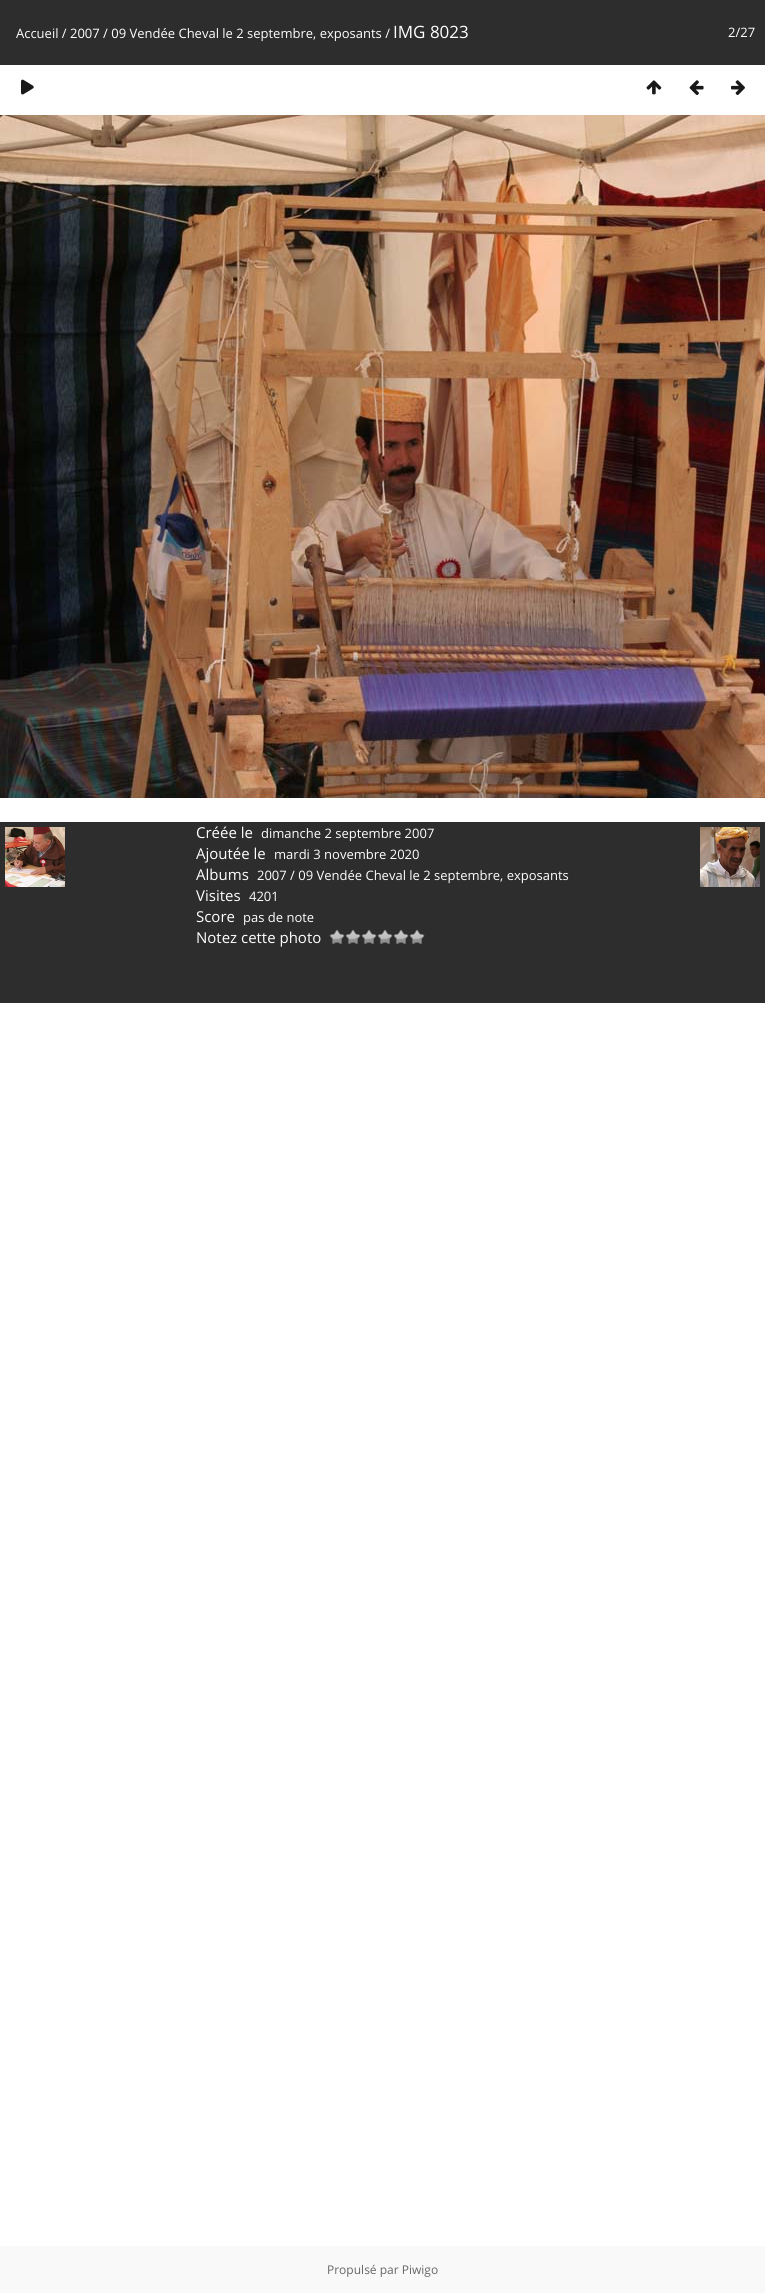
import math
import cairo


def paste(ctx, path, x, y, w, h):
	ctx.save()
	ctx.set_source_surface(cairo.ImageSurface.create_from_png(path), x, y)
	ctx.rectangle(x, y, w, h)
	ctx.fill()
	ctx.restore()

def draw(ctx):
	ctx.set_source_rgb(1, 1, 1)
	ctx.paint()
	ctx.set_source_rgb(0.176, 0.176, 0.176)
	ctx.rectangle(0, 0, 765, 65)
	ctx.fill()
	ctx.select_font_face('Open Sans')
	ctx.set_font_size(13)
	ctx.set_source_rgb(1, 1, 1)
	ctx.move_to(16, 38)
	ctx.show_text('Accueil / 2007 / 09 Vendée Cheval le 2 septembre, exposants /')
	ctx.set_font_size(17)
	ctx.move_to(393, 38)
	ctx.show_text('IMG 8023')
	ctx.set_font_size(13)
	ctx.move_to(728, 37)
	ctx.show_text('2/27')
	paste(ctx, 'media/1.png', 21, 79, 13, 16)
	paste(ctx, 'media/2.png', 646, 80, 16, 15)
	paste(ctx, 'media/3.png', 689, 80, 15, 15)
	paste(ctx, 'media/4.png', 731, 80, 14, 15)
	paste(ctx, 'media/5.png', 0, 115, 765, 683)
	ctx.set_source_rgb(0.176, 0.176, 0.176)
	ctx.rectangle(0, 822, 765, 181)
	ctx.fill()
	ctx.set_font_size(15)
	ctx.set_source_rgb(1, 1, 1)
	ctx.move_to(196, 838)
	ctx.show_text('Créée le')
	ctx.set_font_size(13)
	ctx.move_to(261, 838)
	ctx.show_text('dimanche 2 septembre 2007')
	ctx.set_font_size(15)
	ctx.move_to(196, 859)
	ctx.show_text('Ajoutée le')
	ctx.set_font_size(13)
	ctx.move_to(274, 859)
	ctx.show_text('mardi 3 novembre 2020')
	ctx.set_font_size(15)
	ctx.move_to(196, 880)
	ctx.show_text('Albums')
	ctx.set_font_size(13)
	ctx.move_to(257, 880)
	ctx.show_text('2007 / 09 Vendée Cheval le 2 septembre, exposants')
	ctx.set_font_size(15)
	ctx.move_to(196, 901)
	ctx.show_text('Visites')
	ctx.set_font_size(13)
	ctx.move_to(249, 901)
	ctx.show_text('4201')
	ctx.set_font_size(15)
	ctx.move_to(196, 922)
	ctx.show_text('Score')
	ctx.set_font_size(13)
	ctx.move_to(243, 922)
	ctx.show_text('pas de note')
	ctx.set_font_size(15)
	ctx.move_to(196, 943)
	ctx.show_text('Notez cette photo')
	paste(ctx, 'media/6.png', 329, 930, 16, 14)
	paste(ctx, 'media/6.png', 345, 930, 16, 14)
	paste(ctx, 'media/6.png', 361, 930, 16, 14)
	paste(ctx, 'media/6.png', 377, 930, 16, 14)
	paste(ctx, 'media/6.png', 393, 930, 16, 14)
	paste(ctx, 'media/6.png', 409, 930, 16, 14)
	paste(ctx, 'media/7.png', 5, 827, 60, 60)
	paste(ctx, 'media/8.png', 700, 827, 60, 60)
	ctx.set_source_rgb(0.976, 0.976, 0.976)
	ctx.rectangle(0, 2246, 765, 47)
	ctx.fill()
	ctx.set_font_size(12)
	ctx.set_source_rgb(0.4, 0.4, 0.4)
	ctx.move_to(327, 2274)
	ctx.show_text('Propulsé par Piwigo')


surface = cairo.ImageSurface(cairo.FORMAT_RGB24, 765, 2293)
ctx = cairo.Context(surface)
options = cairo.FontOptions()
options.set_hint_metrics(cairo.HINT_METRICS_OFF)
options.set_hint_style(cairo.HINT_STYLE_NONE)
ctx.set_font_options(options)
ctx.set_miter_limit(4)
draw(ctx)
surface.write_to_png('image.png')
